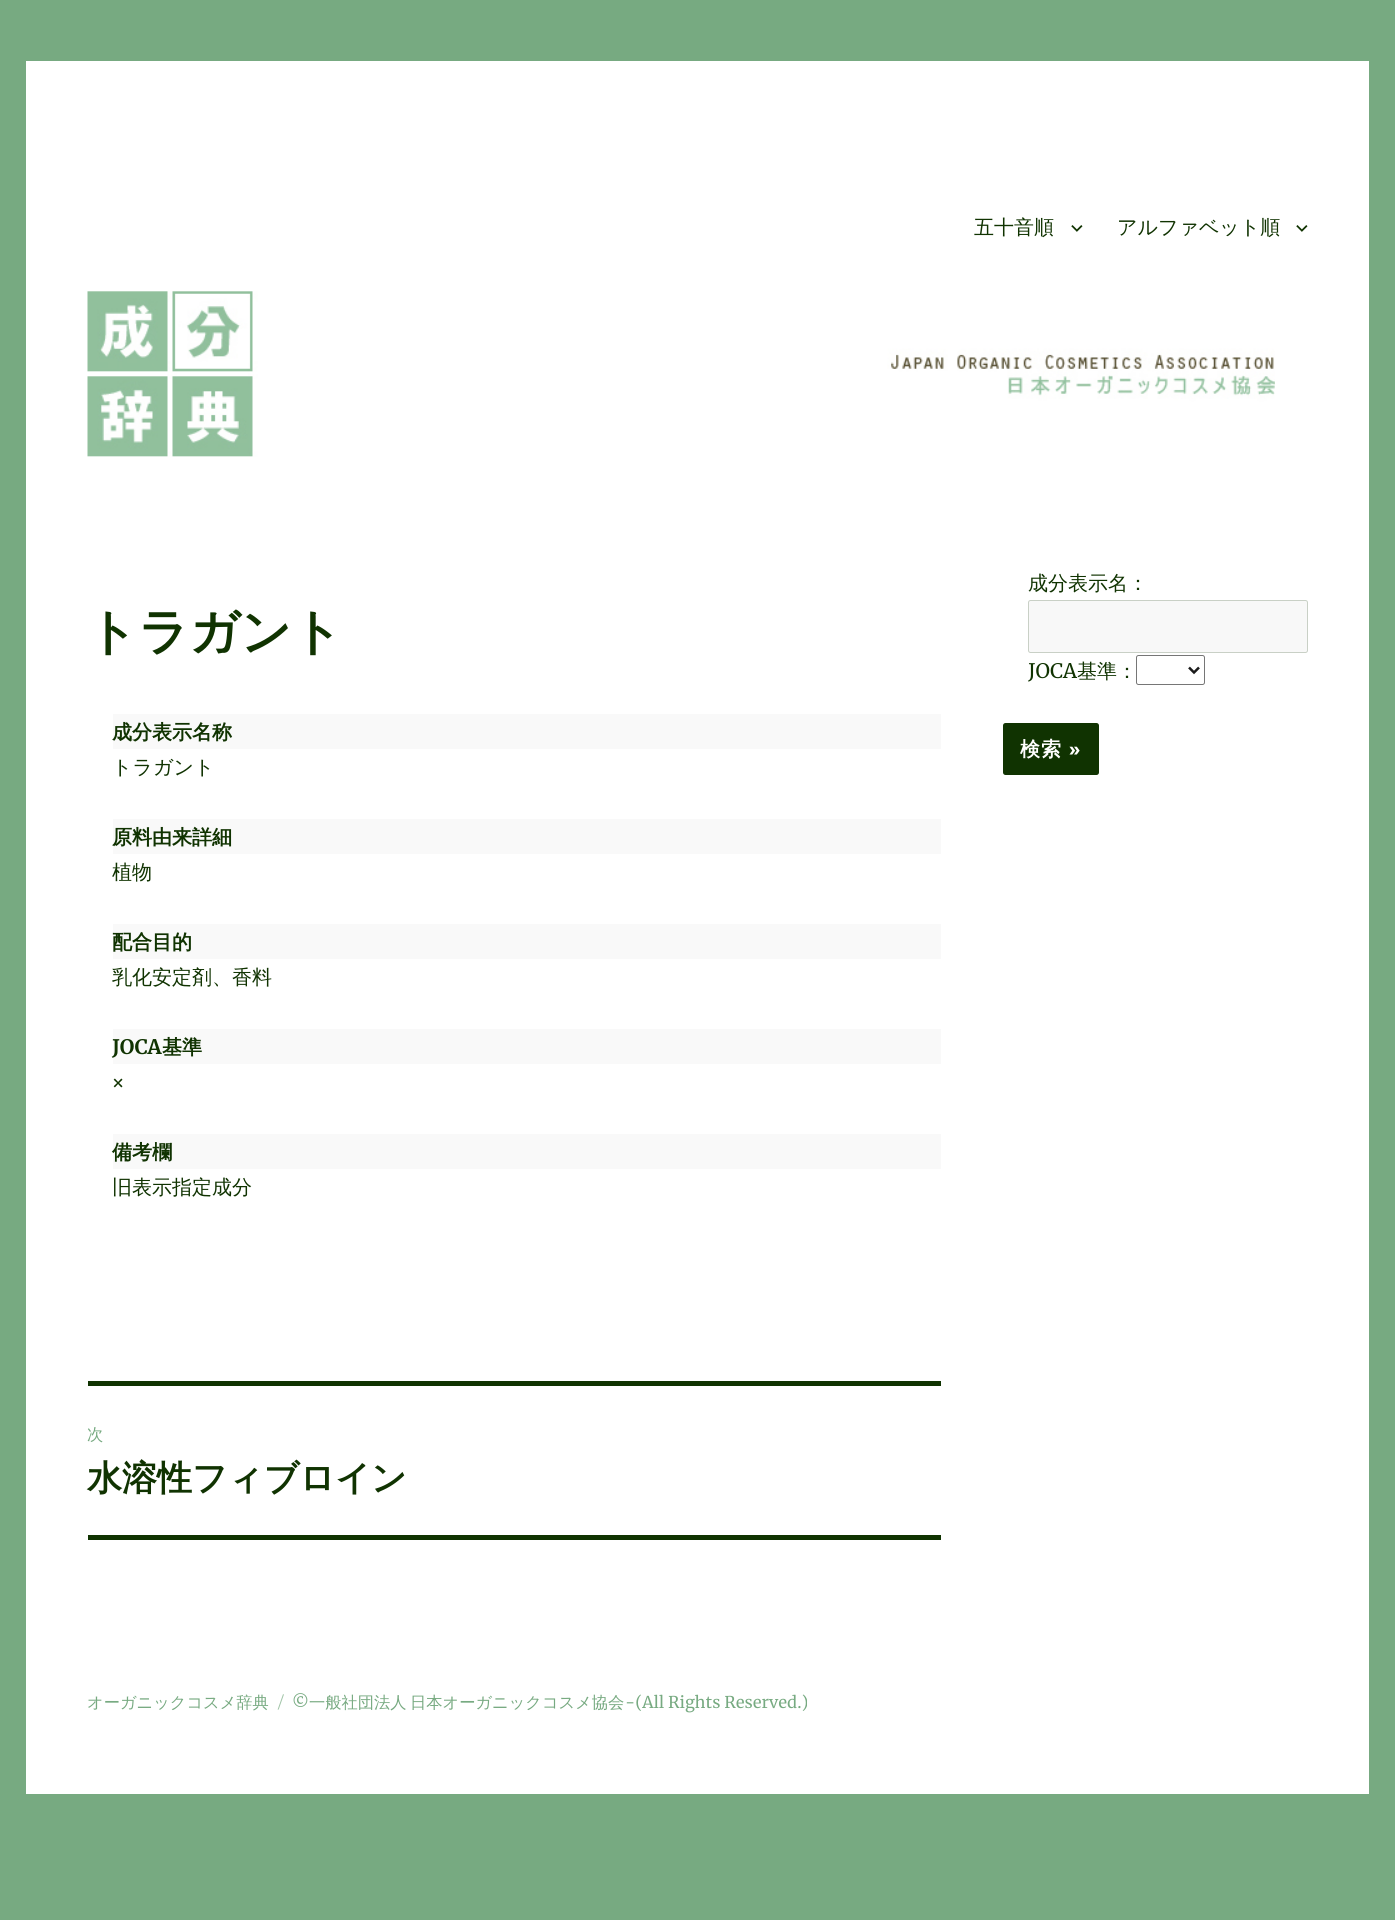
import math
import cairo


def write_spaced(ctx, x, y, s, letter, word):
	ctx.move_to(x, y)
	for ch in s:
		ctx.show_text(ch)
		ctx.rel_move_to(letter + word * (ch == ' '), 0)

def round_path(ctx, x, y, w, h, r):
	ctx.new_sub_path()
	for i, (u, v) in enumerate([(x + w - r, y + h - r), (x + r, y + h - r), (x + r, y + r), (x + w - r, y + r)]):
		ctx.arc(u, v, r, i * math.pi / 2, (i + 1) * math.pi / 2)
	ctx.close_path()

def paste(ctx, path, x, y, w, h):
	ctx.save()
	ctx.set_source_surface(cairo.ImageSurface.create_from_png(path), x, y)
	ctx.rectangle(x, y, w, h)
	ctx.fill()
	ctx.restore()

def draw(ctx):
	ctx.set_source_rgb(0.467, 0.667, 0.506)
	ctx.paint()
	ctx.set_source_rgb(1, 1, 1)
	ctx.rectangle(26, 61, 1343, 1733)
	ctx.fill()
	ctx.select_font_face('WenQuanYi Zen Hei Medium')
	ctx.set_font_size(20)
	ctx.set_source_rgb(0.063, 0.2, 0.004)
	ctx.move_to(974, 234)
	ctx.show_text('五十音順')
	paste(ctx, 'media/1.png', 1071, 225, 12, 7)
	ctx.move_to(1117, 234)
	ctx.show_text('アルファベット順')
	paste(ctx, 'media/1.png', 1296, 225, 12, 7)
	paste(ctx, 'media/2.png', 87, 291, 1188, 166)
	ctx.select_font_face('WenQuanYi Zen Hei', cairo.FONT_SLANT_NORMAL, cairo.FONT_WEIGHT_BOLD)
	ctx.set_font_size(50)
	ctx.move_to(87, 649)
	ctx.show_text('トラガント')
	ctx.set_source_rgb(0.976, 0.976, 0.976)
	ctx.rectangle(113, 714, 828, 35)
	ctx.fill()
	ctx.set_font_size(20)
	ctx.set_source_rgb(0.063, 0.2, 0.004)
	ctx.move_to(112, 739)
	ctx.show_text('成分表示名称')
	ctx.select_font_face('WenQuanYi Zen Hei Medium')
	ctx.move_to(112, 774)
	ctx.show_text('トラガント')
	ctx.set_source_rgb(0.976, 0.976, 0.976)
	ctx.rectangle(113, 819, 828, 35)
	ctx.fill()
	ctx.select_font_face('WenQuanYi Zen Hei', cairo.FONT_SLANT_NORMAL, cairo.FONT_WEIGHT_BOLD)
	ctx.set_source_rgb(0.063, 0.2, 0.004)
	ctx.move_to(112, 844)
	ctx.show_text('原料由来詳細')
	ctx.select_font_face('WenQuanYi Zen Hei Medium')
	ctx.move_to(112, 879)
	ctx.show_text('植物')
	ctx.set_source_rgb(0.976, 0.976, 0.976)
	ctx.rectangle(113, 924, 828, 35)
	ctx.fill()
	ctx.select_font_face('WenQuanYi Zen Hei', cairo.FONT_SLANT_NORMAL, cairo.FONT_WEIGHT_BOLD)
	ctx.set_source_rgb(0.063, 0.2, 0.004)
	ctx.move_to(112, 949)
	ctx.show_text('配合目的')
	ctx.select_font_face('WenQuanYi Zen Hei Medium')
	ctx.move_to(112, 984)
	ctx.show_text('乳化安定剤、香料')
	ctx.set_source_rgb(0.976, 0.976, 0.976)
	ctx.rectangle(113, 1029, 828, 35)
	ctx.fill()
	ctx.select_font_face('Merriweather', cairo.FONT_SLANT_NORMAL, cairo.FONT_WEIGHT_BOLD)
	ctx.set_source_rgb(0.063, 0.2, 0.004)
	ctx.move_to(112, 1054)
	ctx.show_text('JOCA')
	ctx.select_font_face('WenQuanYi Zen Hei', cairo.FONT_SLANT_NORMAL, cairo.FONT_WEIGHT_BOLD)
	ctx.move_to(162, 1054)
	ctx.show_text('基準')
	ctx.select_font_face('Merriweather')
	ctx.move_to(112, 1089)
	ctx.show_text('×')
	ctx.set_source_rgb(0.976, 0.976, 0.976)
	ctx.rectangle(113, 1134, 828, 35)
	ctx.fill()
	ctx.select_font_face('WenQuanYi Zen Hei', cairo.FONT_SLANT_NORMAL, cairo.FONT_WEIGHT_BOLD)
	ctx.set_source_rgb(0.063, 0.2, 0.004)
	ctx.move_to(112, 1159)
	ctx.show_text('備考欄')
	ctx.select_font_face('WenQuanYi Zen Hei Medium')
	ctx.move_to(112, 1194)
	ctx.show_text('旧表示指定成分')
	ctx.rectangle(88, 1381, 853, 5)
	ctx.fill()
	ctx.rectangle(88, 1535, 853, 5)
	ctx.fill()
	ctx.set_font_size(16.25)
	ctx.set_source_rgb(0.467, 0.667, 0.506)
	write_spaced(ctx, 87, 1440, '次', 1, 0)
	ctx.select_font_face('WenQuanYi Zen Hei', cairo.FONT_SLANT_NORMAL, cairo.FONT_WEIGHT_BOLD)
	ctx.set_font_size(35)
	ctx.set_source_rgb(0.063, 0.2, 0.004)
	ctx.move_to(87, 1490)
	ctx.show_text('水溶性フィブロイン')
	ctx.select_font_face('WenQuanYi Zen Hei Medium')
	ctx.set_font_size(20)
	ctx.move_to(1028, 590)
	ctx.show_text('成分表示名：')
	ctx.set_source_rgb(0.969, 0.969, 0.969)
	round_path(ctx, 1028.5, 600.5, 279, 52, 2)
	ctx.fill_preserve()
	ctx.set_source_rgb(0.788, 0.816, 0.776)
	ctx.set_line_width(1)
	ctx.stroke()
	ctx.select_font_face('Merriweather')
	ctx.set_source_rgb(0.063, 0.2, 0.004)
	ctx.move_to(1028, 678)
	ctx.show_text('JOCA')
	ctx.select_font_face('WenQuanYi Zen Hei Medium')
	ctx.move_to(1077, 678)
	ctx.show_text('基準：')
	round_path(ctx, 1136.5, 655.5, 68, 29, 2)
	ctx.set_source_rgb(0.463, 0.463, 0.463)
	ctx.stroke()
	ctx.new_path()
	ctx.move_to(1189, 667.5)
	ctx.line_to(1194, 672.5)
	ctx.line_to(1199, 667.5)
	ctx.set_source_rgb(0.102, 0.102, 0.102)
	ctx.set_line_width(2.5)
	ctx.stroke()
	ctx.set_source_rgb(0.063, 0.2, 0.004)
	round_path(ctx, 1003, 723, 96, 52, 2.5)
	ctx.fill()
	ctx.select_font_face('WenQuanYi Zen Hei', cairo.FONT_SLANT_NORMAL, cairo.FONT_WEIGHT_BOLD)
	ctx.set_source_rgb(1, 1, 1)
	write_spaced(ctx, 1020, 756, '検索', 1, 0)
	ctx.select_font_face('Montserrat Thin')
	write_spaced(ctx, 1069, 756, '»', 1, 0)
	ctx.select_font_face('WenQuanYi Zen Hei Medium')
	ctx.set_font_size(16.25)
	ctx.set_source_rgb(0.467, 0.667, 0.506)
	ctx.move_to(87, 1708)
	ctx.show_text('オーガニックコスメ辞典')
	ctx.select_font_face('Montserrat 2 Thin')
	ctx.set_source_rgb(0.627, 0.769, 0.655)
	ctx.move_to(278, 1708)
	ctx.show_text('/')
	ctx.select_font_face('Merriweather')
	ctx.set_source_rgb(0.467, 0.667, 0.506)
	ctx.move_to(292, 1708)
	ctx.show_text('©')
	ctx.select_font_face('WenQuanYi Zen Hei Medium')
	ctx.move_to(309, 1708)
	ctx.show_text('一般社団法人')
	ctx.move_to(410, 1708)
	ctx.show_text('日本オーガニックコスメ協会')
	ctx.select_font_face('Merriweather')
	ctx.move_to(625, 1708)
	ctx.show_text('-(All Rights Reserved.)')


surface = cairo.ImageSurface(cairo.FORMAT_RGB24, 1395, 1920)
ctx = cairo.Context(surface)
options = cairo.FontOptions()
options.set_hint_metrics(cairo.HINT_METRICS_OFF)
options.set_hint_style(cairo.HINT_STYLE_NONE)
ctx.set_font_options(options)
ctx.set_miter_limit(4)
draw(ctx)
surface.write_to_png('image.png')
